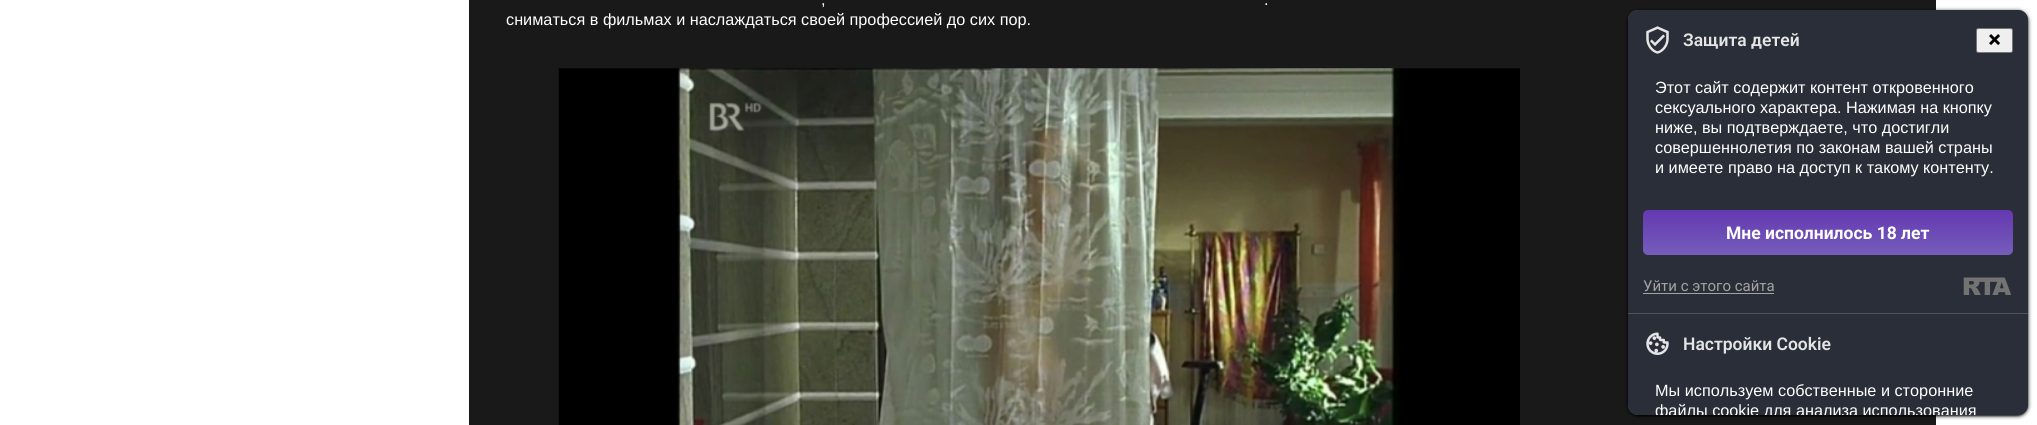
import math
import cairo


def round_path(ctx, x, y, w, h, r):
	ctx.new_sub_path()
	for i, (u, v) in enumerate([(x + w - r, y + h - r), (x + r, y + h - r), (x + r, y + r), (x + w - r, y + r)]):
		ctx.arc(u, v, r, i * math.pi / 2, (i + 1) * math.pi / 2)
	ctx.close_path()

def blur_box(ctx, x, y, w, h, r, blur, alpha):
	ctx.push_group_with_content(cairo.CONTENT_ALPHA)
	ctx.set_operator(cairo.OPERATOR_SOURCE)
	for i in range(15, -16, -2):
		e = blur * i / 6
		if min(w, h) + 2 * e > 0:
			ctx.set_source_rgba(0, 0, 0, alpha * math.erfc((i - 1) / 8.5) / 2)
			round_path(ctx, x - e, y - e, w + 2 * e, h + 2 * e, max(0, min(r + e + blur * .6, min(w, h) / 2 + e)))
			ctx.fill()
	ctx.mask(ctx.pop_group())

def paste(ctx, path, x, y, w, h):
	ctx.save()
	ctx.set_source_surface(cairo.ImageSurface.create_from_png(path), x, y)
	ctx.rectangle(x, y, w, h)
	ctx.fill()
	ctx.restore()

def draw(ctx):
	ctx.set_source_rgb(1, 1, 1)
	ctx.paint()
	ctx.set_source_rgb(0.098, 0.098, 0.098)
	ctx.rectangle(469, 0, 1467, 425)
	ctx.fill()
	ctx.select_font_face('Liberation Sans')
	ctx.set_font_size(16.25)
	ctx.set_source_rgb(1, 1, 1)
	for x, y, s in [
		(821, 5, ','),
		(1264, 5, '.'),
		(506, 25, 'сниматься в фильмах и наслаждаться своей профессией до сих пор.'),
	]:
		ctx.move_to(x, y)
		ctx.show_text(s)
	paste(ctx, 'media/1.png', 558, 68, 962, 357)
	ctx.set_source_rgb(0, 0, 0)
	blur_box(ctx, 1629, 13, 397, 402, 9, 1, 1)
	blur_box(ctx, 1628, 11, 400, 405, 10, 2, 1)
	ctx.set_source_rgb(0.322, 0.322, 0.322)
	round_path(ctx, 1628, 10, 400, 405, 10)
	ctx.fill()
	ctx.set_source_rgb(0.165, 0.18, 0.224)
	ctx.new_path()
	ctx.move_to(1638, 10)
	ctx.line_to(2018, 10)
	ctx.curve_to(2023.5, 10, 2028, 14.5, 2028, 20)
	ctx.line_to(2028, 313)
	ctx.line_to(1628, 313)
	ctx.line_to(1628, 20)
	ctx.curve_to(1628, 14.5, 1632.5, 10, 1638, 10)
	ctx.close_path()
	ctx.fill()
	paste(ctx, 'media/2.png', 1646, 26, 23, 28)
	ctx.select_font_face('Roboto SemiBold')
	ctx.set_font_size(17.5)
	ctx.set_source_rgb(0.898, 0.898, 0.898)
	ctx.move_to(1683, 46)
	ctx.show_text('Защита детей')
	ctx.set_source_rgb(0.937, 0.937, 0.937)
	round_path(ctx, 1976.5, 28.5, 36, 24, 2)
	ctx.fill_preserve()
	ctx.set_source_rgb(0.463, 0.463, 0.463)
	ctx.set_line_width(1)
	ctx.stroke()
	paste(ctx, 'media/3.png', 1989, 34, 11, 11)
	ctx.select_font_face('Liberation Sans')
	ctx.set_font_size(16.25)
	ctx.set_source_rgb(1, 1, 1)
	for x, y, s in [
		(1655, 93, 'Этот сайт содержит контент откровенного'),
		(1655, 113, 'сексуального характера. Нажимая на кнопку'),
		(1655, 133, 'ниже, вы подтверждаете, что достигли'),
		(1655, 153, 'совершеннолетия по законам вашей страны'),
		(1655, 173, 'и имеете право на доступ к такому контенту.'),
	]:
		ctx.move_to(x, y)
		ctx.show_text(s)
	gradient = cairo.LinearGradient(1828, 210, 1828, 255)
	gradient.add_color_stop_rgba(0, 0.392, 0.22, 0.694, 1)
	gradient.add_color_stop_rgba(1, 0.459, 0.365, 0.733, 1)
	ctx.set_source(gradient)
	round_path(ctx, 1643, 210, 370, 45, 5)
	ctx.fill()
	ctx.select_font_face('Roboto', cairo.FONT_SLANT_NORMAL, cairo.FONT_WEIGHT_BOLD)
	ctx.set_font_size(17.5)
	ctx.set_source_rgb(1, 1, 1)
	ctx.move_to(1726, 239)
	ctx.show_text('Мне исполнилось 18 лет')
	ctx.select_font_face('Roboto')
	ctx.set_font_size(15)
	ctx.set_source_rgb(0.639, 0.639, 0.639)
	ctx.move_to(1643, 291)
	ctx.show_text('Уйти с этого сайта')
	ctx.rectangle(1643, 293, 131, 1)
	ctx.fill()
	paste(ctx, 'media/4.png', 1963, 277, 49, 18)
	ctx.set_source_rgb(0.165, 0.18, 0.224)
	ctx.new_path()
	ctx.move_to(1628, 314)
	ctx.line_to(2028, 314)
	ctx.line_to(2028, 405)
	ctx.curve_to(2028, 410.5, 2023.5, 415, 2018, 415)
	ctx.line_to(1638, 415)
	ctx.curve_to(1632.5, 415, 1628, 410.5, 1628, 405)
	ctx.close_path()
	ctx.fill()
	paste(ctx, 'media/5.png', 1646, 332, 23, 23)
	ctx.select_font_face('Roboto SemiBold')
	ctx.set_font_size(17.5)
	ctx.set_source_rgb(0.898, 0.898, 0.898)
	ctx.move_to(1683, 350)
	ctx.show_text('Настройки Cookie')
	ctx.select_font_face('Liberation Sans')
	ctx.set_font_size(16.25)
	ctx.set_source_rgb(1, 1, 1)
	ctx.move_to(1655, 396)
	ctx.show_text('Мы используем собственные и сторонние')
	ctx.save()
	round_path(ctx, 1628, 10, 400, 405, 10)
	ctx.clip()
	ctx.move_to(1655, 416)
	ctx.show_text('файлы cookie для анализа использования')
	ctx.restore()


surface = cairo.ImageSurface(cairo.FORMAT_RGB24, 2037, 425)
ctx = cairo.Context(surface)
options = cairo.FontOptions()
options.set_hint_metrics(cairo.HINT_METRICS_OFF)
options.set_hint_style(cairo.HINT_STYLE_NONE)
ctx.set_font_options(options)
ctx.set_miter_limit(4)
draw(ctx)
surface.write_to_png('image.png')
